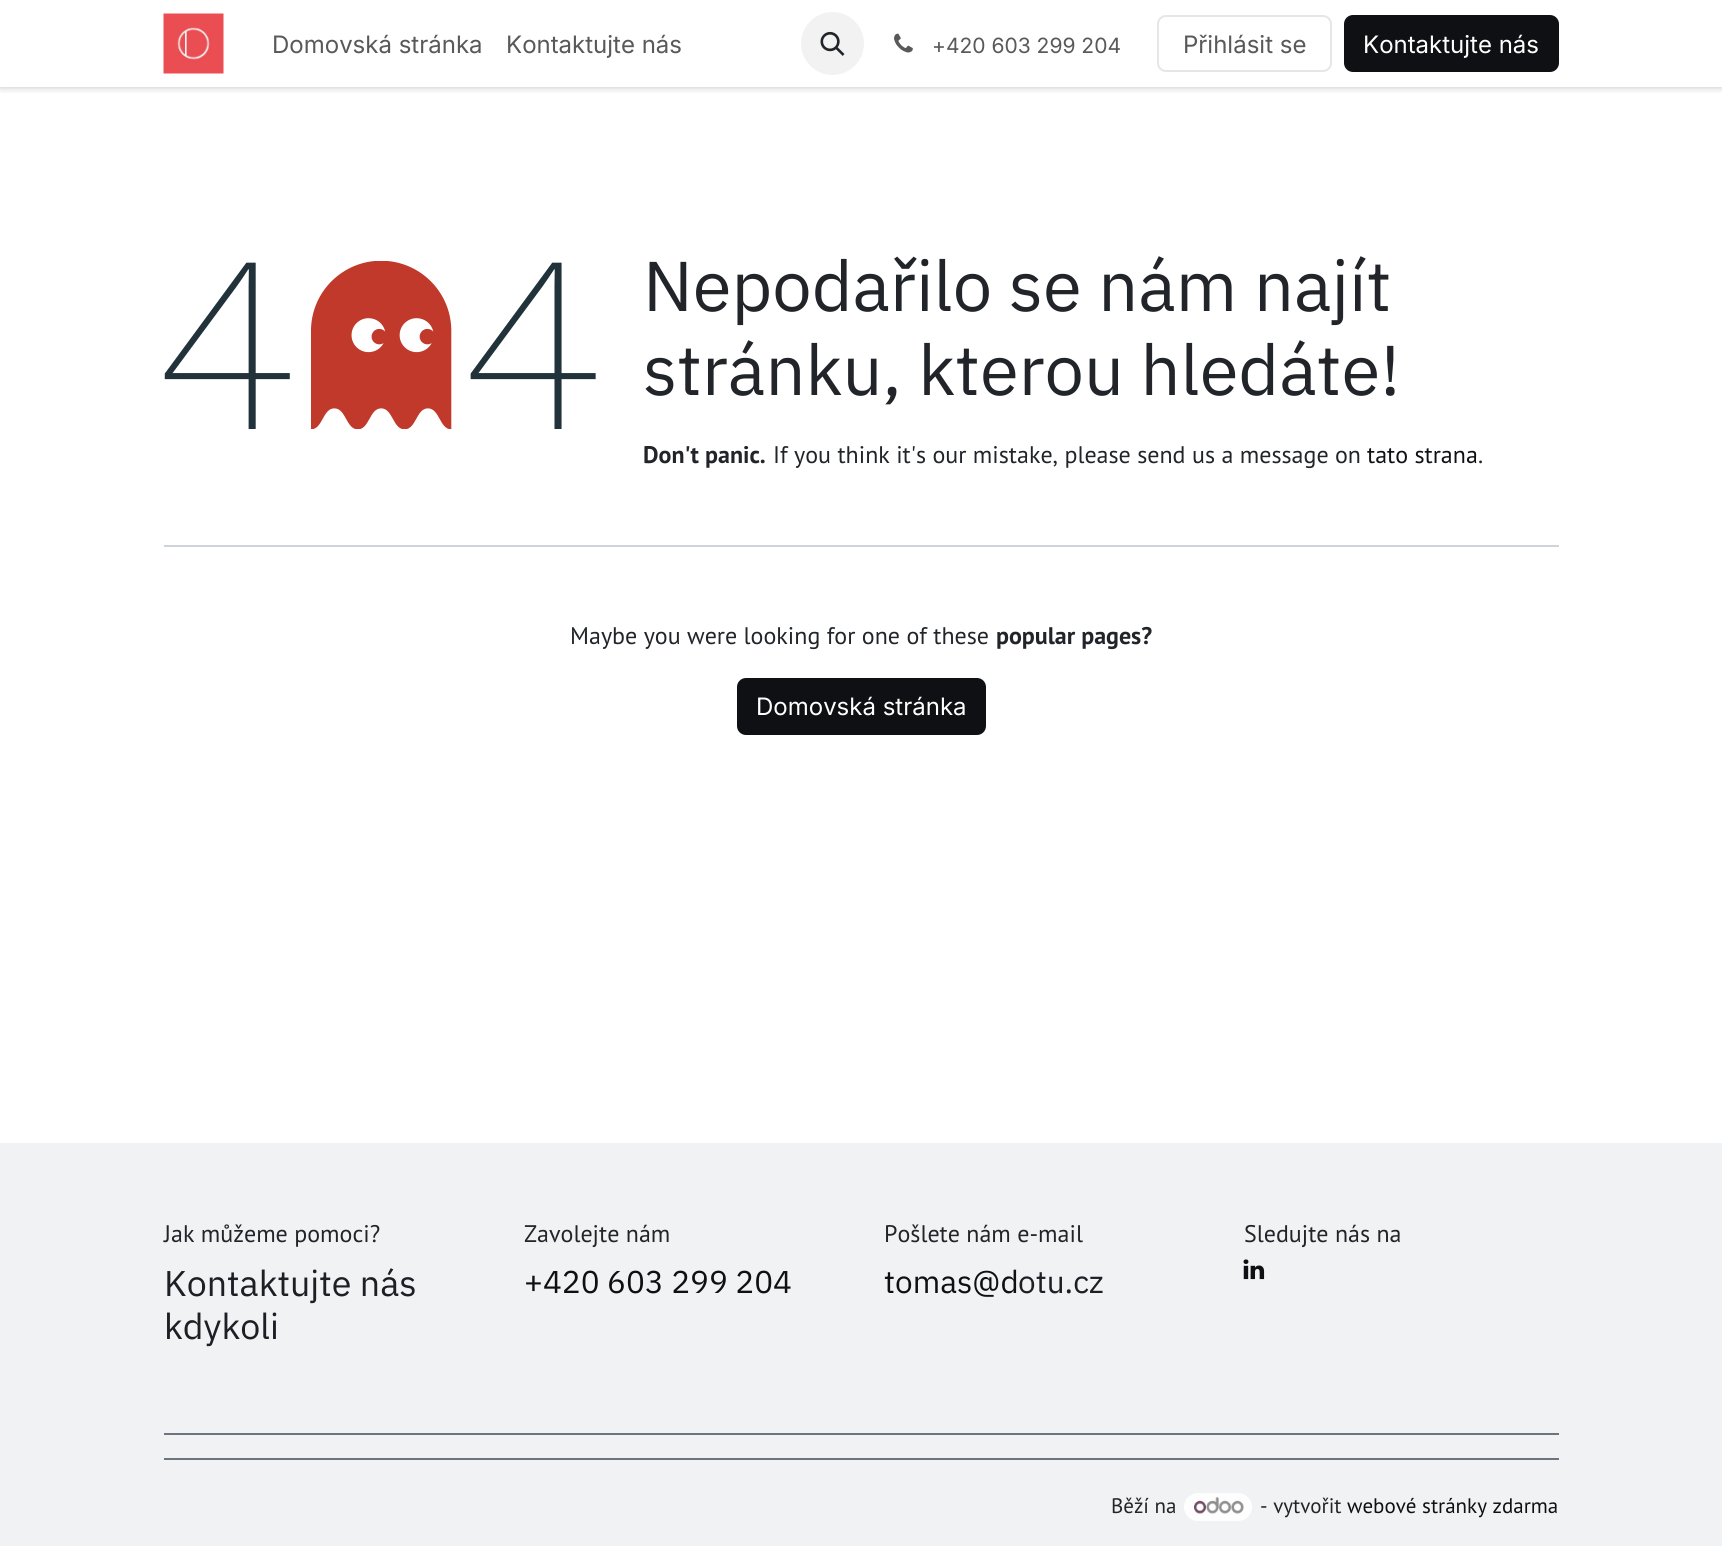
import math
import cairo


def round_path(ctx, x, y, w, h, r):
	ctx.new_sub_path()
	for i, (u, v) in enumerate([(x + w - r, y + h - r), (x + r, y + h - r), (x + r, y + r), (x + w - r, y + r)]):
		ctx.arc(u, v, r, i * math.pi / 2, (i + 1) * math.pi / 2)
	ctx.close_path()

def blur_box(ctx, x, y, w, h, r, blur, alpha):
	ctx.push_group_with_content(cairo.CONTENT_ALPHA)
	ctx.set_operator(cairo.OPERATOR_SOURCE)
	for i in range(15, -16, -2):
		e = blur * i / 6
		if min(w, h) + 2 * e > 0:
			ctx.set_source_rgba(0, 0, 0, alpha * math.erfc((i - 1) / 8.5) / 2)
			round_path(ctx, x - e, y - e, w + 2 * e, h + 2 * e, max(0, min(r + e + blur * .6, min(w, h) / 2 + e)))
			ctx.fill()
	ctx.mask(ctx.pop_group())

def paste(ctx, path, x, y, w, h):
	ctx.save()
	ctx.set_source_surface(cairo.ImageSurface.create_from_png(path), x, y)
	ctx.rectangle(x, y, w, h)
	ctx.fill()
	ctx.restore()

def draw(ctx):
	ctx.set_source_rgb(1, 1, 1)
	ctx.paint()
	ctx.save()
	ctx.rectangle(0, 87, 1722, 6)
	ctx.clip()
	ctx.set_source_rgb(0, 0, 0)
	blur_box(ctx, 0, 0, 1722, 87, 0, 4, 0.25)
	ctx.restore()
	paste(ctx, 'media/1.png', 163, 13, 61, 61)
	ctx.select_font_face('Inter')
	ctx.set_font_size(24)
	ctx.set_source_rgb(0.349, 0.349, 0.349)
	ctx.move_to(272, 53)
	ctx.show_text('Domovská stránka')
	ctx.move_to(506, 53)
	ctx.show_text('Kontaktujte nás')
	ctx.set_source_rgb(0.949, 0.949, 0.949)
	ctx.new_path()
	ctx.arc(832.5, 43.5, 31.5, 0, 2 * math.pi)
	ctx.fill()
	paste(ctx, 'media/2.png', 820, 31, 25, 25)
	paste(ctx, 'media/3.png', 894, 33, 19, 20)
	ctx.set_font_size(21)
	ctx.set_source_rgb(0.349, 0.349, 0.349)
	ctx.move_to(932, 53)
	ctx.show_text('+420 603 299 204')
	round_path(ctx, 1158, 16, 173, 55, 8)
	ctx.set_source_rgb(0.902, 0.902, 0.902)
	ctx.stroke()
	ctx.set_font_size(24)
	ctx.set_source_rgb(0.349, 0.349, 0.349)
	ctx.move_to(1183, 53)
	ctx.show_text('Přihlásit se')
	ctx.set_source_rgb(0.059, 0.063, 0.075)
	round_path(ctx, 1345, 16, 213, 55, 8)
	ctx.fill_preserve()
	ctx.stroke()
	ctx.set_source_rgb(1, 1, 1)
	ctx.move_to(1363, 53)
	ctx.show_text('Kontaktujte nás')
	paste(ctx, 'media/4.png', 164, 261, 432, 168)
	ctx.select_font_face('IBM Plex Sans')
	ctx.set_font_size(70.4)
	ctx.set_source_rgb(0.129, 0.145, 0.161)
	ctx.move_to(643, 311)
	ctx.show_text('Nepodařilo se nám najít')
	ctx.move_to(643, 395)
	ctx.show_text('stránku, kterou hledáte!')
	ctx.select_font_face('PT Sans', cairo.FONT_SLANT_NORMAL, cairo.FONT_WEIGHT_BOLD)
	ctx.set_font_size(24)
	ctx.move_to(643, 463)
	ctx.show_text('Don\'t panic.')
	ctx.select_font_face('PT Sans')
	ctx.move_to(773, 463)
	ctx.show_text('If you think it\'s our mistake, please send us a message on')
	ctx.set_source_rgb(0.059, 0.063, 0.075)
	ctx.move_to(1367, 463)
	ctx.show_text('tato strana')
	ctx.set_source_rgb(0.129, 0.145, 0.161)
	ctx.move_to(1478, 463)
	ctx.show_text('.')
	ctx.set_source_rgb(0.808, 0.831, 0.855)
	ctx.rectangle(164, 545, 1395, 2)
	ctx.fill()
	ctx.set_source_rgb(0.129, 0.145, 0.161)
	ctx.move_to(570, 644)
	ctx.show_text('Maybe you were looking for one of these')
	ctx.select_font_face('PT Sans', cairo.FONT_SLANT_NORMAL, cairo.FONT_WEIGHT_BOLD)
	ctx.move_to(996, 644)
	ctx.show_text('popular pages?')
	ctx.set_source_rgb(0.059, 0.063, 0.075)
	round_path(ctx, 738, 679, 247, 55, 8)
	ctx.fill_preserve()
	ctx.stroke()
	ctx.select_font_face('Inter')
	ctx.set_source_rgb(1, 1, 1)
	ctx.move_to(756, 715)
	ctx.show_text('Domovská stránka')
	ctx.set_source_rgb(0.945, 0.949, 0.957)
	ctx.rectangle(0, 1143, 1722, 403)
	ctx.fill()
	ctx.select_font_face('PT Sans')
	ctx.set_source_rgb(0.129, 0.145, 0.161)
	ctx.move_to(164, 1242)
	ctx.show_text('Jak můžeme pomoci?')
	ctx.select_font_face('IBM Plex Sans')
	ctx.set_font_size(35.75)
	ctx.set_source_rgb(0.114, 0.122, 0.145)
	ctx.move_to(164, 1296)
	ctx.show_text('Kontaktujte nás')
	ctx.move_to(164, 1339)
	ctx.show_text('kdykoli')
	ctx.select_font_face('PT Sans')
	ctx.set_font_size(24)
	ctx.set_source_rgb(0.129, 0.145, 0.161)
	ctx.move_to(524, 1242)
	ctx.show_text('Zavolejte nám')
	ctx.select_font_face('IBM Plex Sans')
	ctx.set_font_size(31.5)
	ctx.set_source_rgb(0.059, 0.063, 0.075)
	ctx.move_to(524, 1293)
	ctx.show_text('+420 603 299 204')
	ctx.select_font_face('PT Sans')
	ctx.set_font_size(24)
	ctx.set_source_rgb(0.129, 0.145, 0.161)
	ctx.move_to(884, 1242)
	ctx.show_text('Pošlete nám e-mail')
	ctx.select_font_face('IBM Plex Sans')
	ctx.set_font_size(31.5)
	ctx.set_source_rgb(0.059, 0.063, 0.075)
	ctx.move_to(884, 1293)
	ctx.show_text('tomas@d')
	ctx.set_source_rgb(0.114, 0.122, 0.145)
	ctx.move_to(1018, 1293)
	ctx.show_text('otu.cz')
	ctx.select_font_face('PT Sans')
	ctx.set_font_size(24)
	ctx.set_source_rgb(0.129, 0.145, 0.161)
	ctx.move_to(1244, 1242)
	ctx.show_text('Sledujte nás na')
	paste(ctx, 'media/5.png', 1243, 1259, 22, 21)
	ctx.set_source_rgb(0.424, 0.459, 0.49)
	ctx.rectangle(164, 1433, 1395, 2)
	ctx.fill()
	ctx.rectangle(164, 1458, 1395, 2)
	ctx.fill()
	ctx.set_font_size(21)
	ctx.set_source_rgb(0.129, 0.145, 0.161)
	ctx.move_to(1111, 1513)
	ctx.show_text('Běží na')
	ctx.set_source_rgb(0.996, 0.996, 0.996)
	round_path(ctx, 1183, 1492, 70, 30, 15)
	ctx.fill_preserve()
	ctx.set_source_rgb(0.945, 0.949, 0.957)
	ctx.stroke()
	paste(ctx, 'media/6.png', 1194, 1497, 50, 17)
	ctx.set_source_rgb(0.129, 0.145, 0.161)
	ctx.move_to(1260, 1513)
	ctx.show_text('- vytvořit')
	ctx.set_source_rgb(0.059, 0.063, 0.075)
	ctx.move_to(1347, 1513)
	ctx.show_text('webové stránky zdarma')


surface = cairo.ImageSurface(cairo.FORMAT_RGB24, 1722, 1546)
ctx = cairo.Context(surface)
options = cairo.FontOptions()
options.set_hint_metrics(cairo.HINT_METRICS_OFF)
options.set_hint_style(cairo.HINT_STYLE_NONE)
ctx.set_font_options(options)
ctx.set_miter_limit(4)
draw(ctx)
surface.write_to_png('image.png')
